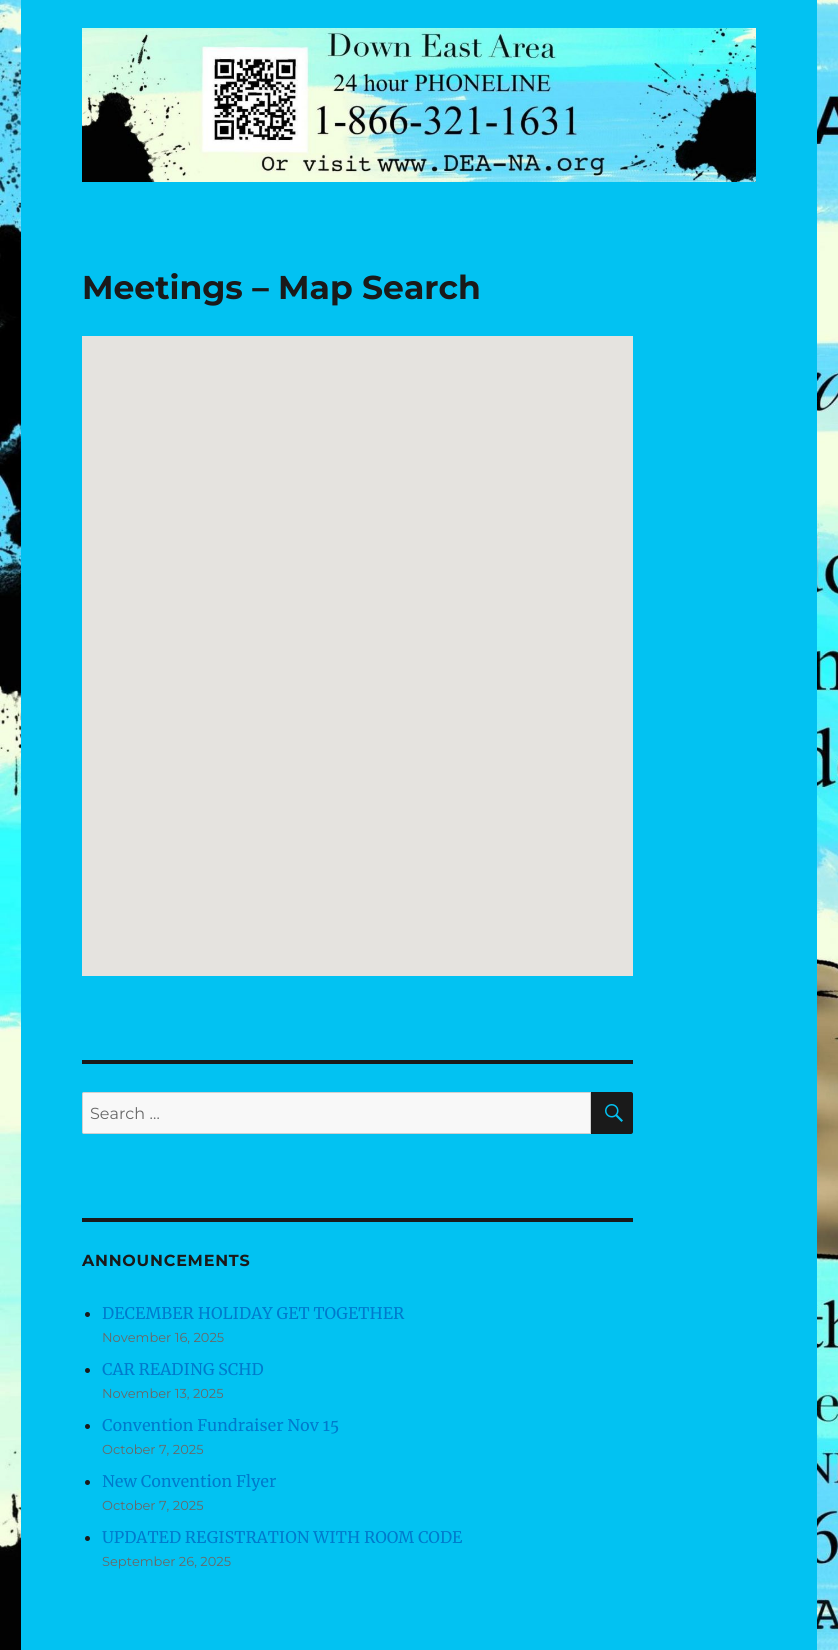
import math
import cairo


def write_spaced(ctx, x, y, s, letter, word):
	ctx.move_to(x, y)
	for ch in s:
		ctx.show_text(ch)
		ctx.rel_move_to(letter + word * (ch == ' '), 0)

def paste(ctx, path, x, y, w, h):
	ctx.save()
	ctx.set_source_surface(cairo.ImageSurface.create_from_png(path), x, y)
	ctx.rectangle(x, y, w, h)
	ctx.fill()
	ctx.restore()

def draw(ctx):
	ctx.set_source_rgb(1, 1, 1)
	ctx.paint()
	paste(ctx, 'media/1.png', 0, 0, 838, 1650)
	ctx.set_source_rgb(0.008, 0.761, 0.949)
	ctx.rectangle(21, 0, 796, 1650)
	ctx.fill()
	paste(ctx, 'media/2.png', 82, 28, 674, 154)
	ctx.select_font_face('Montserrat Thin')
	ctx.set_font_size(33)
	ctx.set_source_rgb(0.102, 0.102, 0.102)
	ctx.move_to(82, 299)
	ctx.show_text('Meetings – Map Search')
	ctx.set_source_rgb(0.898, 0.89, 0.875)
	ctx.rectangle(82, 336, 551, 640)
	ctx.fill()
	ctx.set_source_rgb(0.102, 0.102, 0.102)
	ctx.rectangle(82, 1060, 551, 4)
	ctx.fill()
	ctx.set_source_rgb(0.969, 0.969, 0.969)
	ctx.new_path()
	ctx.move_to(84, 1092.5)
	ctx.line_to(590.5, 1092.5)
	ctx.line_to(590.5, 1133.5)
	ctx.line_to(84, 1133.5)
	ctx.curve_to(83, 1133.5, 82.5, 1133, 82.5, 1132)
	ctx.line_to(82.5, 1094)
	ctx.curve_to(82.5, 1093, 83, 1092.5, 84, 1092.5)
	ctx.close_path()
	ctx.fill_preserve()
	ctx.set_source_rgb(0.82, 0.82, 0.82)
	ctx.set_line_width(1)
	ctx.stroke()
	ctx.select_font_face('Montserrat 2 Thin')
	ctx.set_font_size(16)
	ctx.set_source_rgb(0.408, 0.408, 0.408)
	ctx.move_to(90, 1119)
	ctx.show_text('Search …')
	ctx.set_source_rgb(0.102, 0.102, 0.102)
	ctx.new_path()
	ctx.move_to(591, 1092)
	ctx.line_to(631, 1092)
	ctx.curve_to(632, 1092, 633, 1093, 633, 1094)
	ctx.line_to(633, 1132)
	ctx.curve_to(633, 1133, 632, 1134, 631, 1134)
	ctx.line_to(591, 1134)
	ctx.close_path()
	ctx.fill()
	paste(ctx, 'media/3.png', 605, 1104, 18, 18)
	ctx.rectangle(82, 1218, 551, 4)
	ctx.fill()
	ctx.select_font_face('Montserrat Thin')
	write_spaced(ctx, 82, 1266, 'ANNOUNCEMENTS', 0.75, 0)
	ctx.new_path()
	ctx.arc(87.5, 1314.5, 2.5, 0, 2 * math.pi)
	ctx.fill()
	ctx.select_font_face('Merriweather')
	ctx.set_source_rgb(0, 0.478, 0.8)
	ctx.move_to(102, 1319)
	ctx.show_text('DECEMBER HOLIDAY GET TOGETHER')
	ctx.select_font_face('Montserrat 2 Thin')
	ctx.set_font_size(13)
	ctx.set_source_rgb(0.408, 0.408, 0.408)
	ctx.move_to(102, 1342)
	ctx.show_text('November 16, 2025')
	ctx.set_source_rgb(0.102, 0.102, 0.102)
	ctx.new_path()
	ctx.arc(87.5, 1370.5, 2.5, 0, 2 * math.pi)
	ctx.fill()
	ctx.select_font_face('Merriweather')
	ctx.set_font_size(16)
	ctx.set_source_rgb(0, 0.478, 0.8)
	ctx.move_to(102, 1375)
	ctx.show_text('CAR READING SCHD')
	ctx.select_font_face('Montserrat 2 Thin')
	ctx.set_font_size(13)
	ctx.set_source_rgb(0.408, 0.408, 0.408)
	ctx.move_to(102, 1398)
	ctx.show_text('November 13, 2025')
	ctx.set_source_rgb(0.102, 0.102, 0.102)
	ctx.new_path()
	ctx.arc(87.5, 1426.5, 2.5, 0, 2 * math.pi)
	ctx.fill()
	ctx.select_font_face('Merriweather')
	ctx.set_font_size(16)
	ctx.set_source_rgb(0, 0.478, 0.8)
	ctx.move_to(102, 1431)
	ctx.show_text('Convention Fundraiser Nov 15')
	ctx.select_font_face('Montserrat 2 Thin')
	ctx.set_font_size(13)
	ctx.set_source_rgb(0.408, 0.408, 0.408)
	ctx.move_to(102, 1454)
	ctx.show_text('October 7, 2025')
	ctx.set_source_rgb(0.102, 0.102, 0.102)
	ctx.new_path()
	ctx.arc(87.5, 1482.5, 2.5, 0, 2 * math.pi)
	ctx.fill()
	ctx.select_font_face('Merriweather')
	ctx.set_font_size(16)
	ctx.set_source_rgb(0, 0.478, 0.8)
	ctx.move_to(102, 1487)
	ctx.show_text('New Convention Flyer')
	ctx.select_font_face('Montserrat 2 Thin')
	ctx.set_font_size(13)
	ctx.set_source_rgb(0.408, 0.408, 0.408)
	ctx.move_to(102, 1510)
	ctx.show_text('October 7, 2025')
	ctx.set_source_rgb(0.102, 0.102, 0.102)
	ctx.new_path()
	ctx.arc(87.5, 1538.5, 2.5, 0, 2 * math.pi)
	ctx.fill()
	ctx.select_font_face('Merriweather')
	ctx.set_font_size(16)
	ctx.set_source_rgb(0, 0.478, 0.8)
	ctx.move_to(102, 1543)
	ctx.show_text('UPDATED REGISTRATION WITH ROOM CODE')
	ctx.select_font_face('Montserrat 2 Thin')
	ctx.set_font_size(13)
	ctx.set_source_rgb(0.408, 0.408, 0.408)
	ctx.move_to(102, 1566)
	ctx.show_text('September 26, 2025')


surface = cairo.ImageSurface(cairo.FORMAT_RGB24, 838, 1650)
ctx = cairo.Context(surface)
options = cairo.FontOptions()
options.set_hint_metrics(cairo.HINT_METRICS_OFF)
options.set_hint_style(cairo.HINT_STYLE_NONE)
ctx.set_font_options(options)
ctx.set_miter_limit(4)
draw(ctx)
surface.write_to_png('image.png')
